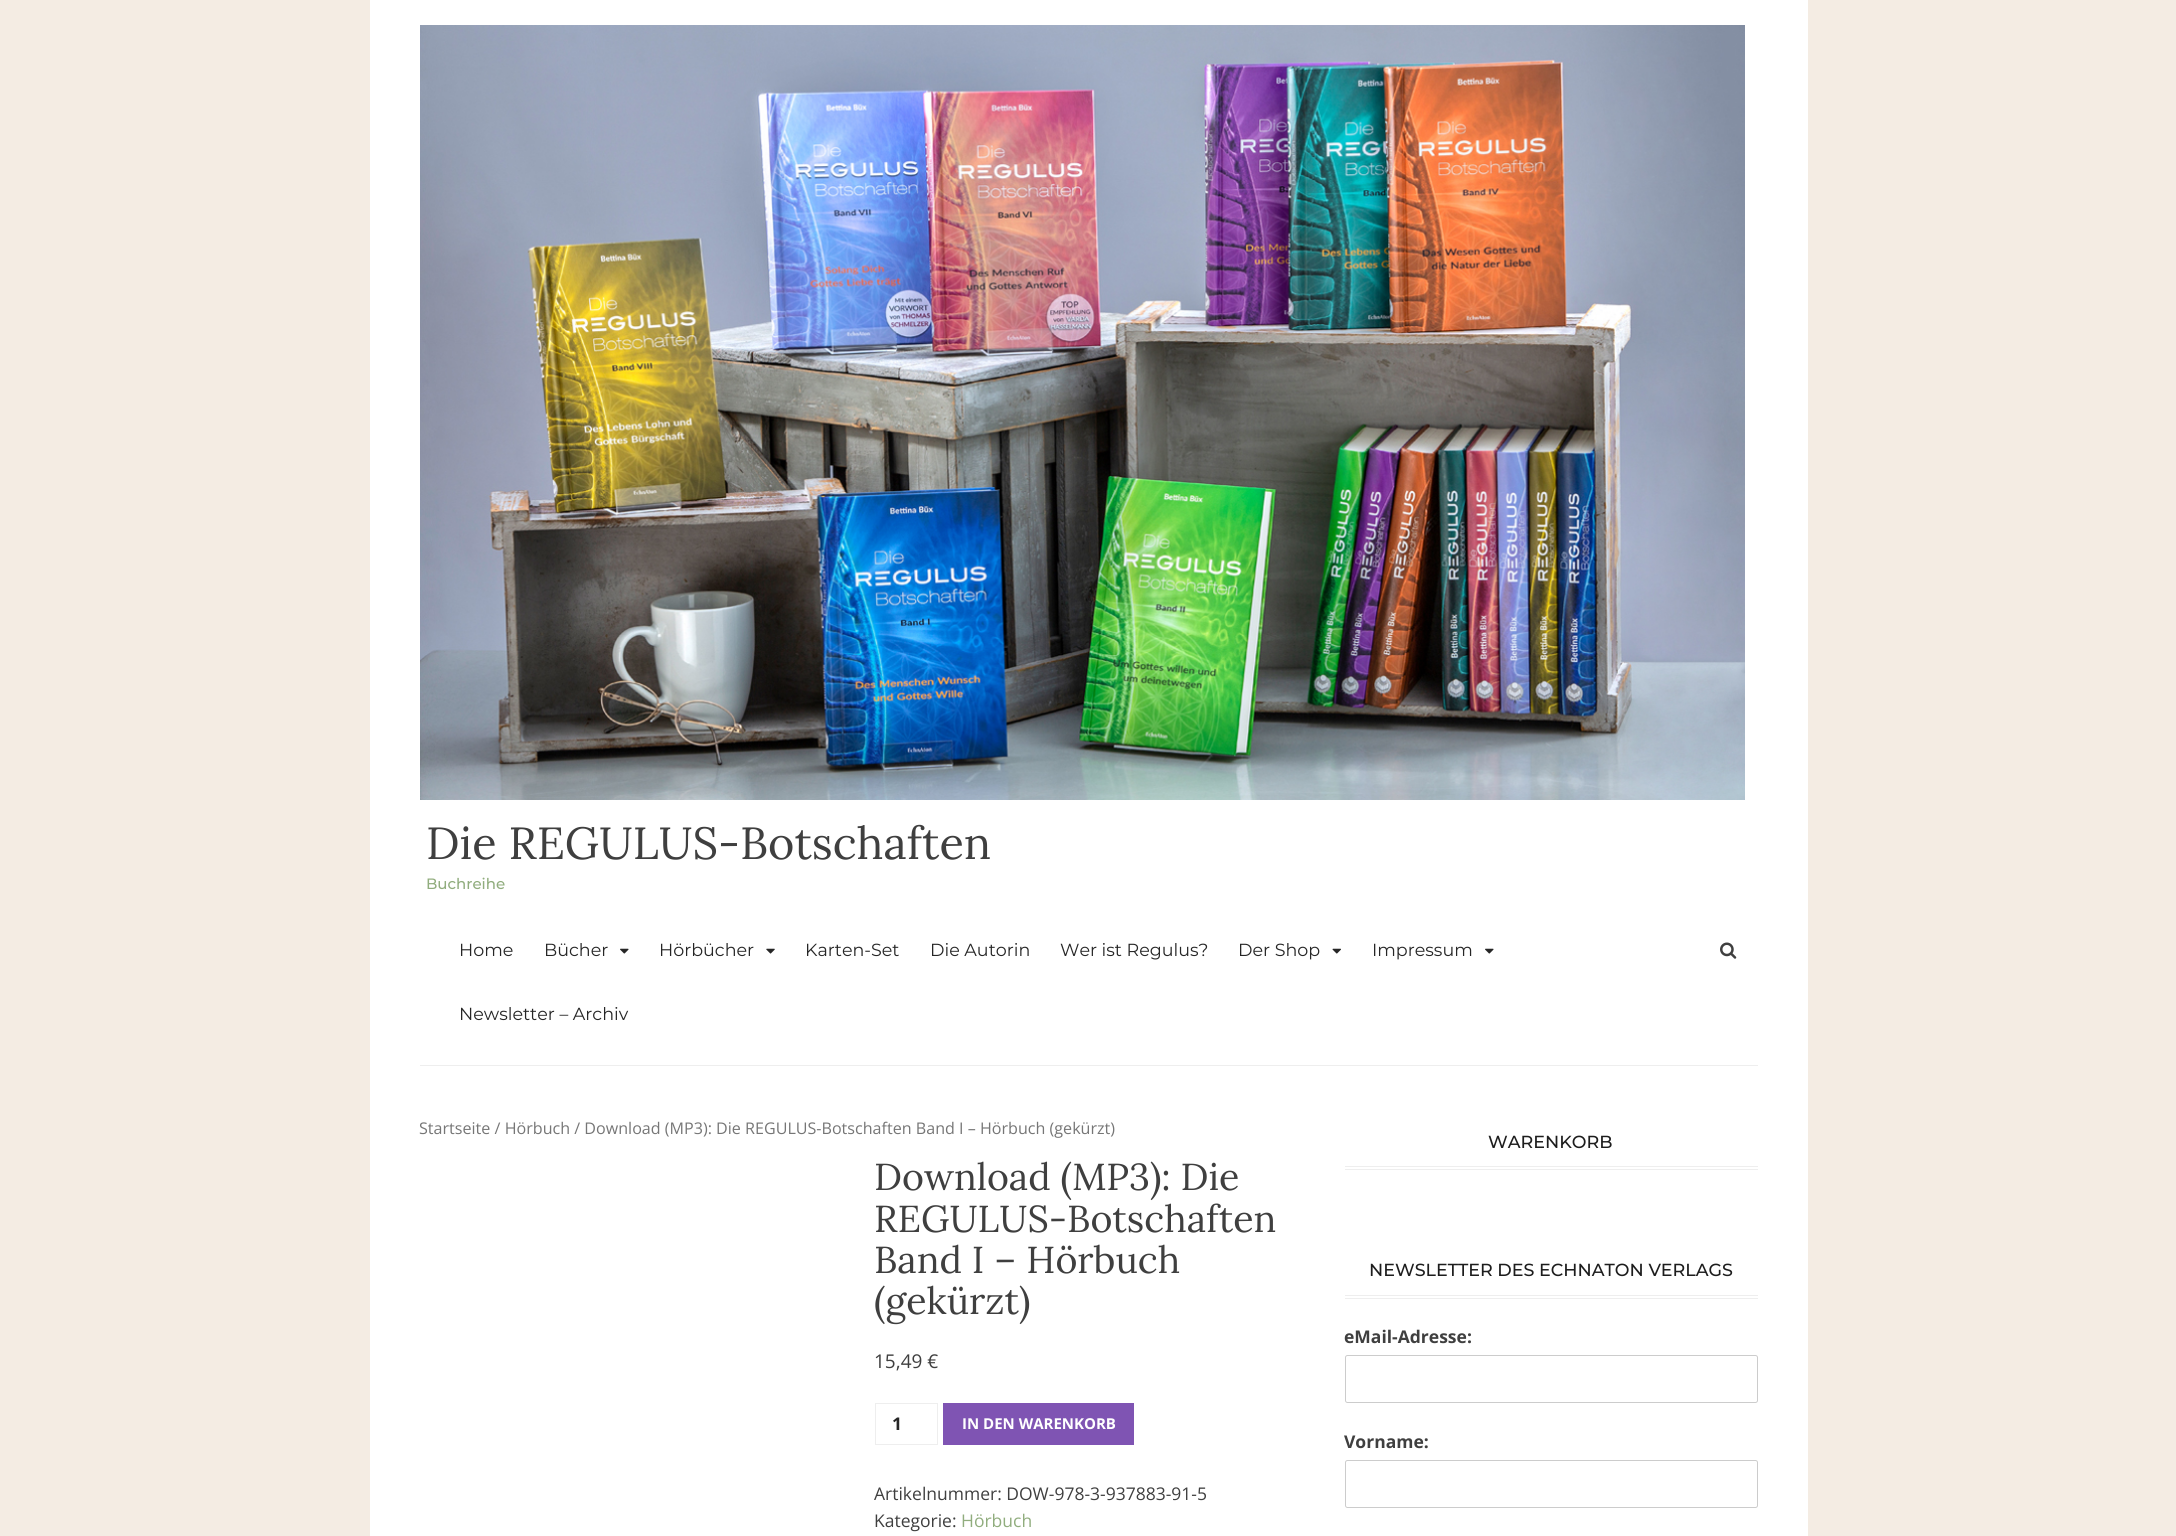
import math
import cairo


def round_path(ctx, x, y, w, h, r):
	ctx.new_sub_path()
	for i, (u, v) in enumerate([(x + w - r, y + h - r), (x + r, y + h - r), (x + r, y + r), (x + w - r, y + r)]):
		ctx.arc(u, v, r, i * math.pi / 2, (i + 1) * math.pi / 2)
	ctx.close_path()

def paste(ctx, path, x, y, w, h):
	ctx.save()
	ctx.set_source_surface(cairo.ImageSurface.create_from_png(path), x, y)
	ctx.rectangle(x, y, w, h)
	ctx.fill()
	ctx.restore()

def draw(ctx):
	ctx.set_source_rgb(0.957, 0.922, 0.89)
	ctx.paint()
	ctx.set_source_rgb(1, 1, 1)
	ctx.rectangle(370, 0, 1438, 1536)
	ctx.fill()
	ctx.set_source_rgb(0.933, 0.933, 0.933)
	ctx.rectangle(420, 1065, 1338, 1)
	ctx.fill()
	paste(ctx, 'media/1.png', 420, 25, 1325, 775)
	ctx.select_font_face('Lora')
	ctx.set_font_size(45)
	ctx.set_source_rgb(0.247, 0.247, 0.247)
	ctx.move_to(426, 859)
	ctx.show_text('Die REGULUS-Botschaften')
	ctx.select_font_face('Montserrat Medium')
	ctx.set_font_size(15)
	ctx.set_source_rgb(0.569, 0.678, 0.494)
	ctx.move_to(426, 889)
	ctx.show_text('Buchreihe')
	ctx.select_font_face('Montserrat')
	ctx.set_font_size(17.5)
	ctx.set_source_rgb(0.149, 0.149, 0.149)
	ctx.move_to(459, 956)
	ctx.show_text('Home')
	ctx.move_to(544, 956)
	ctx.show_text('Bücher')
	paste(ctx, 'media/2.png', 620, 948, 9, 6)
	ctx.move_to(659, 956)
	ctx.show_text('Hörbücher')
	paste(ctx, 'media/3.png', 766, 948, 9, 6)
	for x, y, s in [
		(805, 956, 'Karten-Set'),
		(930, 956, 'Die Autorin'),
		(1060, 956, 'Wer ist Regulus?'),
		(1238, 956, 'Der Shop'),
	]:
		ctx.move_to(x, y)
		ctx.show_text(s)
	paste(ctx, 'media/4.png', 1332, 948, 9, 6)
	ctx.move_to(1372, 956)
	ctx.show_text('Impressum')
	paste(ctx, 'media/2.png', 1485, 948, 9, 6)
	ctx.move_to(459, 1020)
	ctx.show_text('Newsletter – Archiv')
	paste(ctx, 'media/5.png', 1720, 942, 17, 17)
	ctx.select_font_face('Open Sans')
	ctx.set_font_size(16.1)
	ctx.set_source_rgb(0.463, 0.463, 0.463)
	ctx.move_to(419, 1134)
	ctx.show_text('Startseite / Hörbuch / Download (MP3): Die REGULUS-Botschaften Band I – Hörbuch (gekürzt)')
	ctx.select_font_face('Lora')
	ctx.set_font_size(37.5)
	ctx.set_source_rgb(0.247, 0.247, 0.247)
	for x, y, s in [
		(874, 1190, 'Download (MP3): Die'),
		(874, 1232, 'REGULUS-Botschaften'),
		(874, 1273, 'Band I – Hörbuch'),
		(874, 1314, '(gekürzt)'),
	]:
		ctx.move_to(x, y)
		ctx.show_text(s)
	ctx.select_font_face('Open Sans')
	ctx.set_font_size(19)
	ctx.move_to(874, 1368)
	ctx.show_text('15,49 €')
	ctx.rectangle(875.5, 1403.5, 62, 41)
	ctx.set_source_rgb(0.933, 0.933, 0.933)
	ctx.set_line_width(1)
	ctx.stroke()
	ctx.select_font_face('Open Sans', cairo.FONT_SLANT_NORMAL, cairo.FONT_WEIGHT_BOLD)
	ctx.set_font_size(17.5)
	ctx.set_source_rgb(0.149, 0.149, 0.149)
	ctx.move_to(892, 1430)
	ctx.show_text('1')
	ctx.set_source_rgb(0.498, 0.329, 0.702)
	ctx.rectangle(943, 1403, 191, 42)
	ctx.fill()
	ctx.set_font_size(15)
	ctx.set_source_rgb(1, 1, 1)
	ctx.move_to(962, 1429)
	ctx.show_text('IN DEN WARENKORB')
	ctx.select_font_face('Open Sans')
	ctx.set_font_size(17.5)
	ctx.set_source_rgb(0.247, 0.247, 0.247)
	ctx.move_to(874, 1500)
	ctx.show_text('Artikelnummer: DOW-978-3-937883-91-5')
	ctx.move_to(874, 1527)
	ctx.show_text('Kategorie:')
	ctx.set_source_rgb(0.569, 0.678, 0.494)
	ctx.move_to(961, 1527)
	ctx.show_text('Hörbuch')
	ctx.set_source_rgb(0.933, 0.933, 0.933)
	ctx.rectangle(1345, 1166, 413, 1)
	ctx.fill()
	ctx.rectangle(1345, 1169, 413, 1)
	ctx.fill()
	ctx.select_font_face('Montserrat Medium')
	ctx.set_source_rgb(0.114, 0.114, 0.114)
	ctx.move_to(1488, 1148)
	ctx.show_text('WARENKORB')
	ctx.set_source_rgb(0.933, 0.933, 0.933)
	ctx.rectangle(1345, 1295, 413, 1)
	ctx.fill()
	ctx.rectangle(1345, 1298, 413, 1)
	ctx.fill()
	ctx.set_source_rgb(0.114, 0.114, 0.114)
	ctx.move_to(1369, 1276)
	ctx.show_text('NEWSLETTER DES ECHNATON VERLAGS')
	ctx.select_font_face('Open Sans', cairo.FONT_SLANT_NORMAL, cairo.FONT_WEIGHT_BOLD)
	ctx.set_source_rgb(0.247, 0.247, 0.247)
	ctx.move_to(1344, 1343)
	ctx.show_text('eMail-Adresse:')
	round_path(ctx, 1345.5, 1355.5, 412, 47, 2)
	ctx.set_source_rgb(0.8, 0.8, 0.8)
	ctx.stroke()
	ctx.set_source_rgb(0.247, 0.247, 0.247)
	ctx.move_to(1344, 1448)
	ctx.show_text('Vorname:')
	round_path(ctx, 1345.5, 1460.5, 412, 47, 2)
	ctx.set_source_rgb(0.8, 0.8, 0.8)
	ctx.stroke()


surface = cairo.ImageSurface(cairo.FORMAT_RGB24, 2176, 1536)
ctx = cairo.Context(surface)
options = cairo.FontOptions()
options.set_hint_metrics(cairo.HINT_METRICS_OFF)
options.set_hint_style(cairo.HINT_STYLE_NONE)
ctx.set_font_options(options)
ctx.set_miter_limit(4)
draw(ctx)
surface.write_to_png('image.png')
